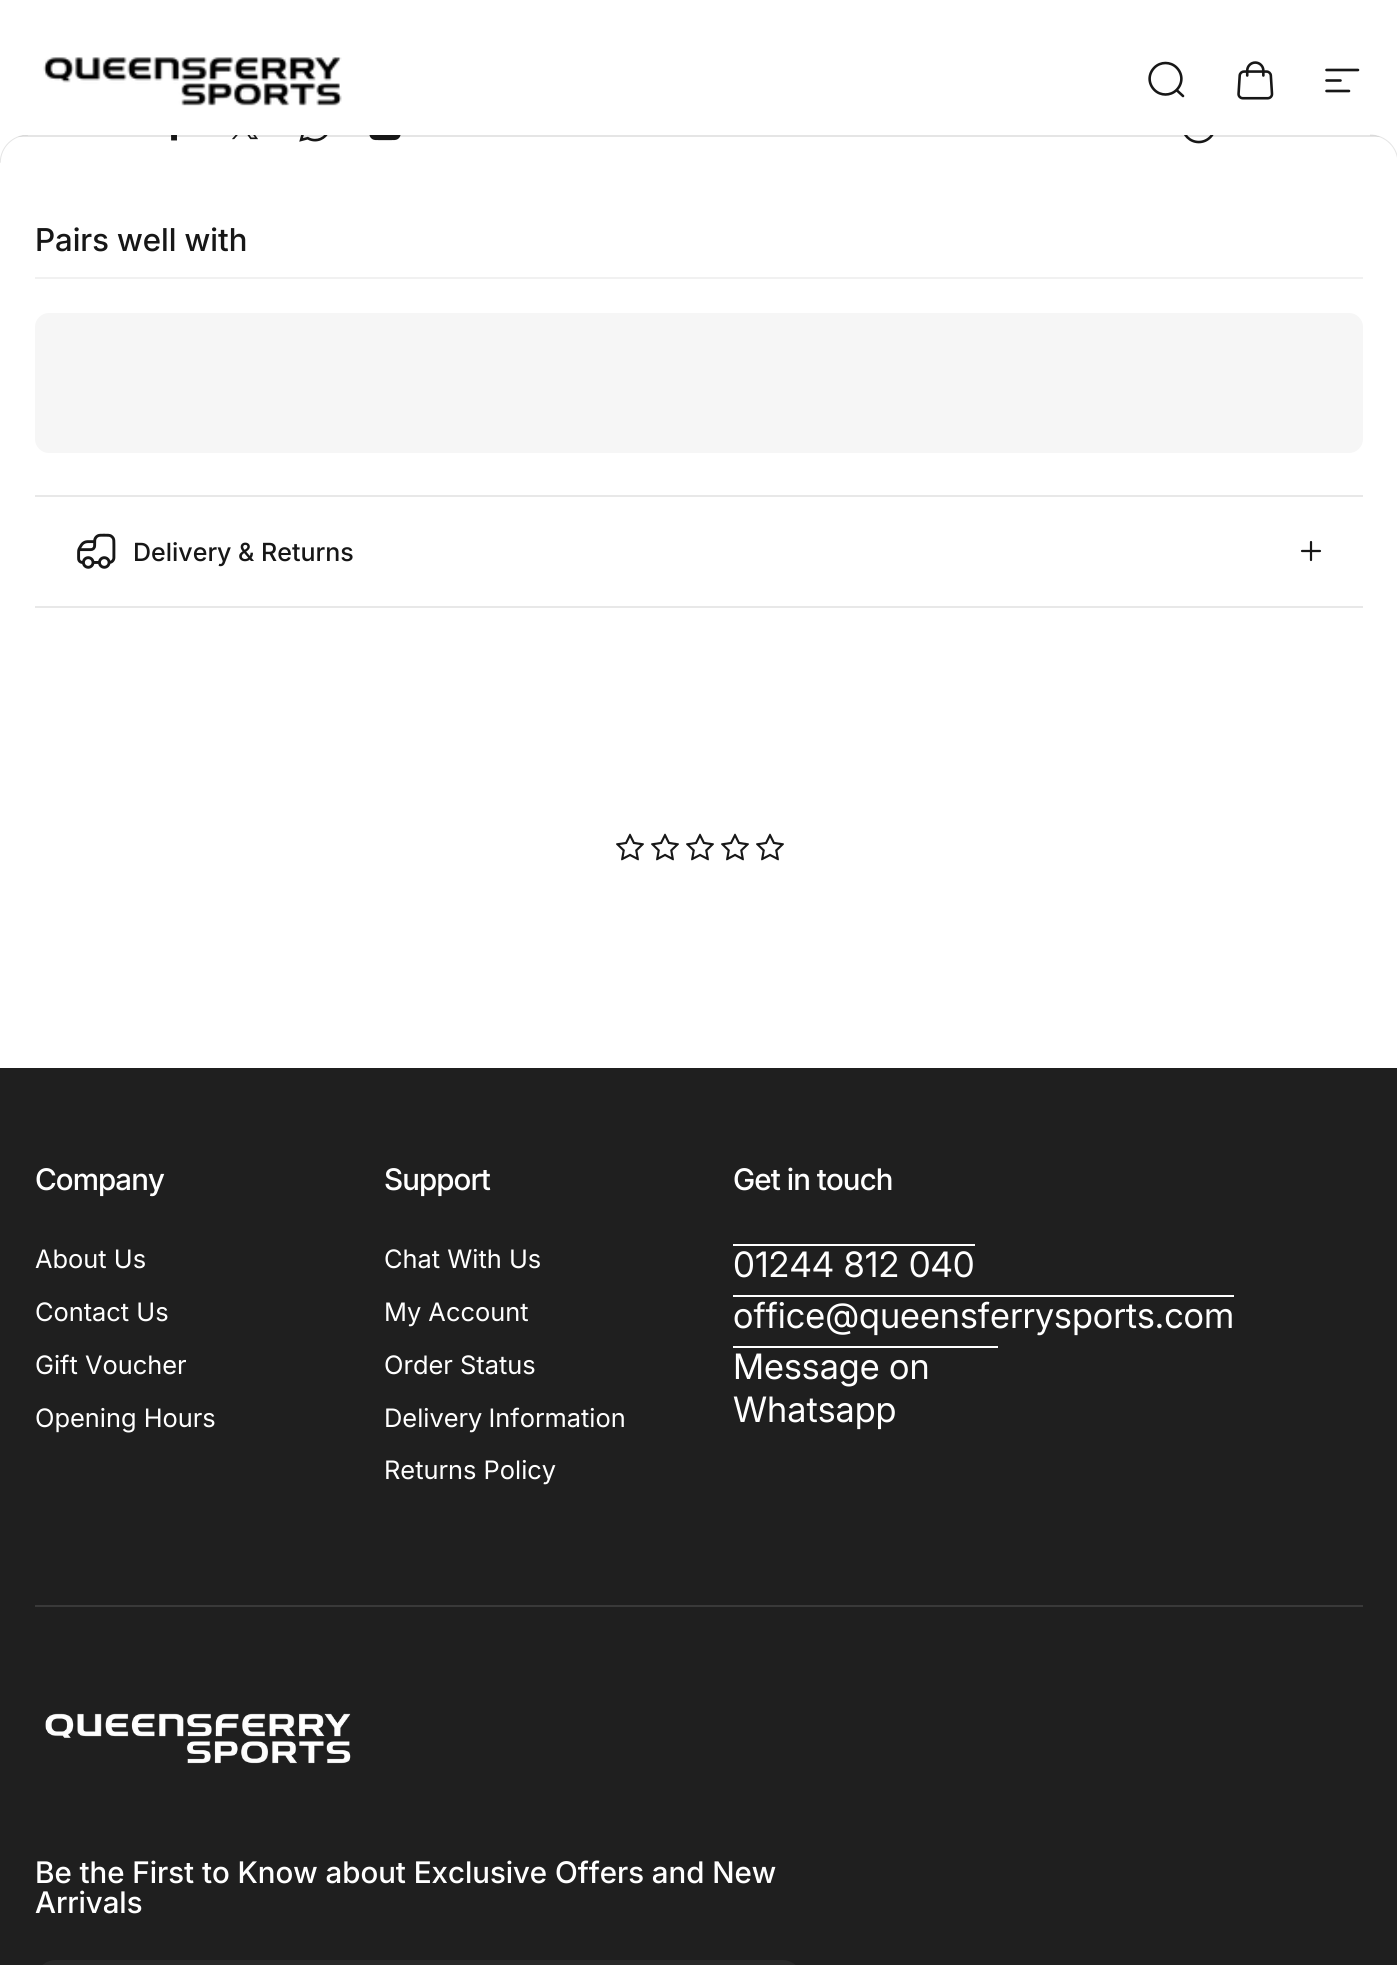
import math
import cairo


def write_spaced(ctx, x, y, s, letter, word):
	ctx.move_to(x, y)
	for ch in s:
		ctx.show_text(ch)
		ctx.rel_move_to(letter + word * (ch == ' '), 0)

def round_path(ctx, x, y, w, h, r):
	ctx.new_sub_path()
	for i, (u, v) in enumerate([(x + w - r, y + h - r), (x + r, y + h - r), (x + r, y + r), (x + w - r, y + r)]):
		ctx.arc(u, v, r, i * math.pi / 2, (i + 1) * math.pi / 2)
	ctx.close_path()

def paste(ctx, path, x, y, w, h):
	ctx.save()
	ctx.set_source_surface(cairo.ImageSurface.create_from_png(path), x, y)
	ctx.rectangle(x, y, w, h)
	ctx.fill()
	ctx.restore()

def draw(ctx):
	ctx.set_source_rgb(0.122, 0.122, 0.122)
	ctx.paint()
	ctx.set_source_rgb(1, 1, 1)
	ctx.rectangle(0, 0, 1397, 1068)
	ctx.fill()
	paste(ctx, 'media/1.png', 43, 57, 299, 49)
	ctx.new_path()
	ctx.move_to(1183, 96)
	ctx.line_to(1176.5, 90)
	ctx.move_to(1176.5, 90)
	ctx.curve_to(1183, 83.5, 1183, 74, 1176.5, 67.5)
	ctx.curve_to(1170.5, 61.5, 1160.5, 61.5, 1154.5, 67.5)
	ctx.curve_to(1148, 74, 1148, 83.5, 1154.5, 90)
	ctx.curve_to(1160.5, 96, 1170.5, 96, 1176.5, 90)
	ctx.close_path()
	ctx.set_source_rgb(0.09, 0.09, 0.09)
	ctx.set_line_width(2.6)
	ctx.set_line_cap(cairo.LINE_CAP_ROUND)
	ctx.stroke()
	paste(ctx, 'media/2.png', 1237, 61, 37, 39)
	ctx.new_path()
	ctx.move_to(1326.5, 70)
	ctx.line_to(1358, 70)
	ctx.move_to(1326.5, 80.5)
	ctx.line_to(1340.5, 80.5)
	ctx.move_to(1326.5, 91)
	ctx.line_to(1349, 91)
	ctx.stroke()
	paste(ctx, 'media/4.png', 171, 135, 6, 6)
	paste(ctx, 'media/5.png', 232, 135, 26, 5)
	paste(ctx, 'media/6.png', 299, 135, 29, 7)
	paste(ctx, 'media/7.png', 369, 135, 32, 6)
	paste(ctx, 'media/8.png', 1184, 135, 30, 9)
	ctx.set_source_rgba(0.09, 0.09, 0.09, 0.11)
	ctx.rectangle(17, 135, 1364, 2)
	ctx.fill()
	paste(ctx, 'media/3.png', 0, 135, 28, 28)
	ctx.set_source_rgb(1, 1, 1)
	ctx.set_fill_rule(cairo.FILL_RULE_EVEN_ODD)
	ctx.new_path()
	ctx.move_to(1370, 135)
	ctx.line_to(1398, 135)
	ctx.line_to(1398, 163)
	ctx.curve_to(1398, 147.5, 1385.5, 135, 1370, 135)
	ctx.close_path()
	ctx.fill()
	ctx.new_path()
	ctx.move_to(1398, 163)
	ctx.curve_to(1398, 147.5, 1385.5, 135, 1370, 135)
	ctx.set_source_rgba(0.09, 0.09, 0.09, 0.11)
	ctx.set_line_width(1)
	ctx.set_line_cap(cairo.LINE_CAP_BUTT)
	ctx.stroke()
	ctx.set_source_rgb(0.945, 0.945, 0.945)
	ctx.rectangle(35, 277, 1328, 2)
	ctx.fill()
	ctx.select_font_face('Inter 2 Medium')
	ctx.set_font_size(31.5)
	ctx.set_source_rgb(0.09, 0.09, 0.09)
	ctx.move_to(35, 251)
	ctx.show_text('Pairs well with')
	gradient = cairo.LinearGradient(103, -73, 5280, 840)
	gradient.add_color_stop_rgba(0.4, 0.965, 0.965, 0.965, 1)
	gradient.add_color_stop_rgba(0.63, 0.898, 0.898, 0.898, 1)
	gradient.add_color_stop_rgba(0.79, 0.965, 0.965, 0.965, 1)
	ctx.set_source(gradient)
	round_path(ctx, 35, 313, 1328, 140, 14)
	ctx.fill()
	ctx.set_source_rgb(0.91, 0.91, 0.91)
	ctx.rectangle(35, 495, 1328, 2)
	ctx.fill()
	ctx.rectangle(35, 606, 1328, 2)
	ctx.fill()
	paste(ctx, 'media/9.png', 77, 533, 39, 36)
	ctx.select_font_face('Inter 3 Medium')
	ctx.set_font_size(25)
	ctx.set_source_rgb(0.09, 0.09, 0.09)
	ctx.move_to(133, 561)
	ctx.show_text('Delivery & Returns')
	ctx.new_path()
	ctx.move_to(1311, 542)
	ctx.line_to(1311, 560)
	ctx.move_to(1320, 551)
	ctx.line_to(1302, 551)
	ctx.set_line_width(2.2)
	ctx.set_line_cap(cairo.LINE_CAP_ROUND)
	ctx.set_line_join(cairo.LINE_JOIN_ROUND)
	ctx.stroke()
	paste(ctx, 'media/10.png', 616, 833, 28, 28)
	paste(ctx, 'media/10.png', 651, 833, 28, 28)
	paste(ctx, 'media/10.png', 686, 833, 28, 28)
	paste(ctx, 'media/10.png', 721, 833, 28, 28)
	paste(ctx, 'media/10.png', 756, 833, 28, 28)
	ctx.select_font_face('Inter Medium')
	ctx.set_font_size(29.75)
	ctx.set_source_rgb(1, 1, 1)
	write_spaced(ctx, 35, 1190, 'Company', -0.9, 0)
	ctx.select_font_face('Inter')
	ctx.set_font_size(25.4)
	for x, y, s in [
		(35, 1268, 'About Us'),
		(35, 1321, 'Contact Us'),
		(35, 1374, 'Gift Voucher'),
		(35, 1427, 'Opening Hours'),
	]:
		ctx.move_to(x, y)
		ctx.show_text(s)
	ctx.select_font_face('Inter Medium')
	ctx.set_font_size(29.75)
	write_spaced(ctx, 384, 1190, 'Support', -0.9, 0)
	ctx.select_font_face('Inter')
	ctx.set_font_size(25.4)
	for x, y, s in [
		(384, 1268, 'Chat With Us'),
		(384, 1321, 'My Account'),
		(384, 1374, 'Order Status'),
	]:
		ctx.move_to(x, y)
		ctx.show_text(s)
	write_spaced(ctx, 384, 1427, 'Delivery Information', 0, -1)
	ctx.move_to(384, 1479)
	ctx.show_text('Returns Policy')
	ctx.select_font_face('Inter Medium')
	ctx.set_font_size(29.75)
	write_spaced(ctx, 733, 1190, 'Get in touch', -0.9, 0)
	ctx.rectangle(733, 1244, 242, 2)
	ctx.fill()
	ctx.select_font_face('Inter 2')
	ctx.set_font_size(35)
	ctx.move_to(733, 1277)
	ctx.show_text('01244 812 040')
	ctx.rectangle(733, 1295, 501, 2)
	ctx.fill()
	ctx.move_to(733, 1328)
	ctx.show_text('office@queensferrysports.com')
	ctx.rectangle(733, 1346, 265, 2)
	ctx.fill()
	ctx.move_to(733, 1379)
	ctx.show_text('Message on')
	ctx.move_to(733, 1422)
	ctx.show_text('Whatsapp')
	ctx.set_source_rgb(0.224, 0.224, 0.224)
	ctx.rectangle(35, 1605, 1328, 2)
	ctx.fill()
	paste(ctx, 'media/11.png', 45, 1713, 306, 51)
	ctx.select_font_face('Inter Medium')
	ctx.set_font_size(29.75)
	ctx.set_source_rgb(1, 1, 1)
	ctx.move_to(35, 1883)
	ctx.show_text('Be the First to Know about Exclusive Offers and New')
	ctx.move_to(35, 1913)
	ctx.show_text('Arrivals')
	ctx.set_source_rgb(0.161, 0.161, 0.161)
	round_path(ctx, 35, 1960, 768, 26, 21)
	ctx.fill()


surface = cairo.ImageSurface(cairo.FORMAT_RGB24, 1397, 1965)
ctx = cairo.Context(surface)
options = cairo.FontOptions()
options.set_hint_metrics(cairo.HINT_METRICS_OFF)
options.set_hint_style(cairo.HINT_STYLE_NONE)
ctx.set_font_options(options)
ctx.set_miter_limit(4)
draw(ctx)
surface.write_to_png('image.png')
